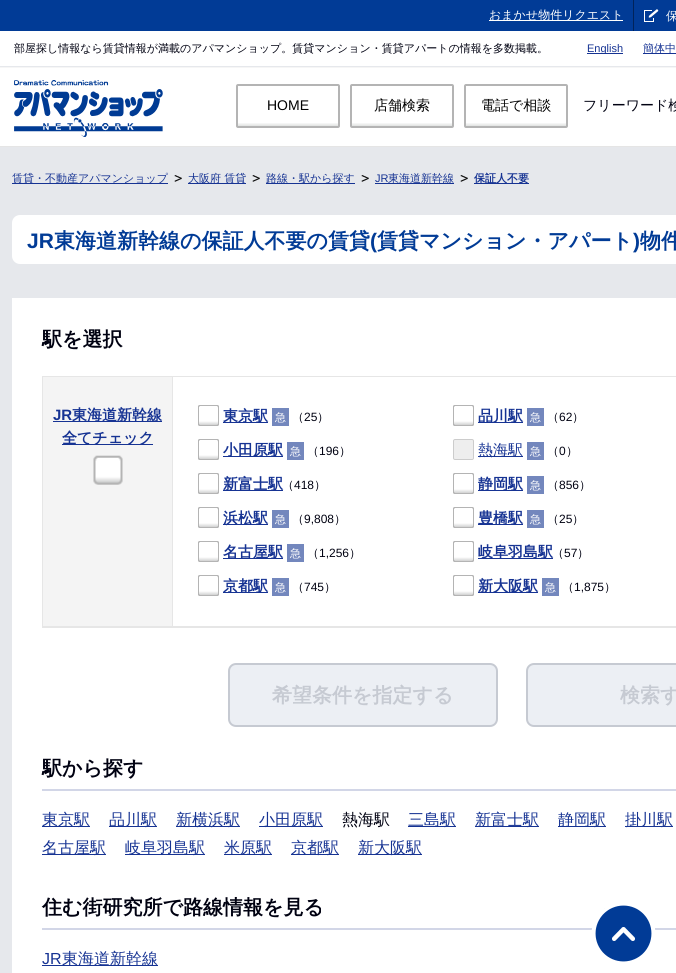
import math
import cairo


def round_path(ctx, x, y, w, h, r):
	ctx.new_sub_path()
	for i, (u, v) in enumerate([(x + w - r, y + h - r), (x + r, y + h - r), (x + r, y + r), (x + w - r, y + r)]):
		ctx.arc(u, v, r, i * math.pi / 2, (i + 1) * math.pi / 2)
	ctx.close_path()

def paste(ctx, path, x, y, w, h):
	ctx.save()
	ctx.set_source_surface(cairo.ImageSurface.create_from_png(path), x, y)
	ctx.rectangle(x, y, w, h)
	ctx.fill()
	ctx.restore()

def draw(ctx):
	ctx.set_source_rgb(0.898, 0.898, 0.898)
	ctx.paint()
	ctx.set_source_rgb(0.004, 0.231, 0.588)
	ctx.rectangle(0, 0, 676, 31)
	ctx.fill()
	ctx.set_source_rgb(1, 1, 1)
	ctx.rectangle(489, 20, 134, 1)
	ctx.fill()
	ctx.select_font_face('WenQuanYi Zen Hei Medium')
	ctx.set_font_size(12)
	ctx.move_to(489, 19)
	ctx.show_text('おまかせ物件リクエスト')
	paste(ctx, 'media/1.png', 644, 9, 15, 13)
	ctx.set_source_rgb(0.004, 0.137, 0.353)
	ctx.rectangle(633, 0, 1, 31)
	ctx.fill()
	ctx.set_source_rgb(1, 1, 1)
	ctx.move_to(666, 20)
	ctx.show_text('保')
	ctx.rectangle(0, 31, 676, 35)
	ctx.fill()
	ctx.set_source_rgb(0.902, 0.91, 0.925)
	ctx.rectangle(0, 66, 676, 1)
	ctx.fill()
	ctx.set_font_size(11)
	ctx.set_source_rgb(0, 0.004, 0.067)
	ctx.move_to(14, 52)
	ctx.show_text('部屋探し情報なら賃貸情報が満載のアパマンショップ。賃貸マンション・賃貸アパートの情報を多数掲載。')
	ctx.set_source_rgb(0.086, 0.2, 0.576)
	ctx.rectangle(587, 53, 36, 1)
	ctx.fill()
	ctx.save()
	ctx.rectangle(577, 41, 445, 13)
	ctx.clip()
	ctx.select_font_face('Liberation Sans')
	ctx.move_to(587, 52)
	ctx.show_text('English')
	ctx.restore()
	ctx.rectangle(643, 53, 33, 1)
	ctx.fill()
	ctx.move_to(643, 52)
	ctx.show_text('簡体中')
	ctx.set_source_rgb(1, 1, 1)
	ctx.rectangle(0, 68, 676, 78)
	ctx.fill()
	ctx.set_source_rgb(0.961, 0.961, 0.961)
	ctx.rectangle(0, 67, 676, 1)
	ctx.fill()
	paste(ctx, 'media/2.png', 14, 80, 149, 57)
	gradient = cairo.LinearGradient(288, 86, 288, 126)
	gradient.add_color_stop_rgba(0, 0.996, 1, 1, 1)
	gradient.add_color_stop_rgba(0.91, 1, 1, 1, 1)
	gradient.add_color_stop_rgba(1, 0.878, 0.886, 0.882, 1)
	ctx.set_source(gradient)
	ctx.rectangle(238, 123, 100, 3)
	ctx.fill()
	round_path(ctx, 237, 85, 102, 42, 1)
	ctx.set_source_rgb(0.706, 0.706, 0.706)
	ctx.stroke()
	ctx.select_font_face('Liberation Sans')
	ctx.set_font_size(14)
	ctx.set_source_rgb(0, 0, 0)
	ctx.move_to(267, 110)
	ctx.show_text('HOME')
	gradient = cairo.LinearGradient(402, 86, 402, 126)
	gradient.add_color_stop_rgba(0, 0.996, 1, 1, 1)
	gradient.add_color_stop_rgba(0.91, 1, 1, 1, 1)
	gradient.add_color_stop_rgba(1, 0.878, 0.886, 0.882, 1)
	ctx.set_source(gradient)
	ctx.rectangle(352, 123, 100, 3)
	ctx.fill()
	round_path(ctx, 351, 85, 102, 42, 1)
	ctx.set_source_rgb(0.706, 0.706, 0.706)
	ctx.stroke()
	ctx.select_font_face('WenQuanYi Zen Hei Medium')
	ctx.set_source_rgb(0, 0, 0)
	ctx.move_to(374, 110)
	ctx.show_text('店舗検索')
	gradient = cairo.LinearGradient(516, 86, 516, 126)
	gradient.add_color_stop_rgba(0, 0.996, 1, 1, 1)
	gradient.add_color_stop_rgba(0.91, 1, 1, 1, 1)
	gradient.add_color_stop_rgba(1, 0.878, 0.886, 0.882, 1)
	ctx.set_source(gradient)
	ctx.rectangle(466, 123, 100, 3)
	ctx.fill()
	round_path(ctx, 465, 85, 102, 42, 1)
	ctx.set_source_rgb(0.706, 0.706, 0.706)
	ctx.stroke()
	ctx.set_source_rgb(0, 0, 0)
	ctx.move_to(481, 110)
	ctx.show_text('電話で相談')
	ctx.set_source_rgb(0, 0.004, 0.067)
	ctx.move_to(583, 110)
	ctx.show_text('フリーワード検')
	ctx.set_source_rgb(0.902, 0.91, 0.925)
	ctx.rectangle(0, 147, 676, 826)
	ctx.fill()
	ctx.set_source_rgb(0.086, 0.2, 0.576)
	ctx.rectangle(12, 183, 156, 1)
	ctx.fill()
	ctx.set_font_size(11)
	ctx.move_to(12, 182)
	ctx.show_text('賃貸・不動産アパマンショップ')
	paste(ctx, 'media/3.png', 174, 175, 8, 7)
	ctx.rectangle(188, 183, 58, 1)
	ctx.fill()
	ctx.move_to(188, 182)
	ctx.show_text('大阪府 賃貸')
	paste(ctx, 'media/3.png', 252, 175, 8, 7)
	ctx.rectangle(266, 183, 89, 1)
	ctx.fill()
	ctx.move_to(266, 182)
	ctx.show_text('路線・駅から探す')
	paste(ctx, 'media/3.png', 361, 175, 8, 7)
	ctx.select_font_face('Liberation Sans')
	ctx.move_to(375, 182)
	ctx.show_text('JR')
	ctx.rectangle(375, 183, 79, 1)
	ctx.fill()
	ctx.select_font_face('WenQuanYi Zen Hei Medium')
	ctx.move_to(388, 182)
	ctx.show_text('東海道新幹線')
	paste(ctx, 'media/3.png', 460, 175, 8, 7)
	ctx.rectangle(474, 183, 55, 1)
	ctx.fill()
	ctx.select_font_face('WenQuanYi Zen Hei', cairo.FONT_SLANT_NORMAL, cairo.FONT_WEIGHT_BOLD)
	ctx.move_to(474, 182)
	ctx.show_text('保証人不要')
	ctx.set_source_rgb(1, 1, 1)
	round_path(ctx, 12, 215, 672, 49, 8)
	ctx.fill()
	ctx.select_font_face('Liberation Sans', cairo.FONT_SLANT_NORMAL, cairo.FONT_WEIGHT_BOLD)
	ctx.set_font_size(21)
	ctx.set_source_rgb(0.004, 0.231, 0.588)
	ctx.move_to(27, 248)
	ctx.show_text('JR')
	ctx.select_font_face('WenQuanYi Zen Hei', cairo.FONT_SLANT_NORMAL, cairo.FONT_WEIGHT_BOLD)
	ctx.move_to(54, 248)
	ctx.show_text('東海道新幹線の保証人不要の賃貸')
	ctx.select_font_face('Liberation Sans', cairo.FONT_SLANT_NORMAL, cairo.FONT_WEIGHT_BOLD)
	ctx.move_to(370, 248)
	ctx.show_text('(')
	ctx.select_font_face('WenQuanYi Zen Hei', cairo.FONT_SLANT_NORMAL, cairo.FONT_WEIGHT_BOLD)
	ctx.move_to(377, 248)
	ctx.show_text('賃貸マンション・アパート')
	ctx.select_font_face('Liberation Sans', cairo.FONT_SLANT_NORMAL, cairo.FONT_WEIGHT_BOLD)
	ctx.move_to(633, 248)
	ctx.show_text(')')
	ctx.select_font_face('WenQuanYi Zen Hei', cairo.FONT_SLANT_NORMAL, cairo.FONT_WEIGHT_BOLD)
	ctx.move_to(640, 248)
	ctx.show_text('物件')
	ctx.set_source_rgb(1, 1, 1)
	ctx.rectangle(12, 298, 664, 675)
	ctx.fill()
	ctx.set_font_size(20)
	ctx.set_source_rgb(0, 0.004, 0.067)
	ctx.move_to(42, 346)
	ctx.show_text('駅を選択')
	ctx.set_source_rgb(0.902, 0.902, 0.902)
	ctx.rectangle(42, 376, 634, 1)
	ctx.rectangle(42, 626, 634, 2)
	ctx.rectangle(42, 376, 1, 251)
	ctx.fill()
	ctx.set_source_rgb(0.957, 0.957, 0.957)
	ctx.rectangle(43, 377, 129, 249)
	ctx.fill()
	ctx.select_font_face('Liberation Sans', cairo.FONT_SLANT_NORMAL, cairo.FONT_WEIGHT_BOLD)
	ctx.set_font_size(15)
	ctx.set_source_rgb(0.086, 0.2, 0.576)
	ctx.move_to(53, 420)
	ctx.show_text('JR')
	ctx.rectangle(53, 421, 109, 1)
	ctx.fill()
	ctx.select_font_face('WenQuanYi Zen Hei', cairo.FONT_SLANT_NORMAL, cairo.FONT_WEIGHT_BOLD)
	ctx.move_to(72, 420)
	ctx.show_text('東海道新幹線')
	ctx.rectangle(62, 444, 91, 1)
	ctx.fill()
	ctx.move_to(62, 443)
	ctx.show_text('全てチェック')
	paste(ctx, 'media/4.png', 93, 455, 30, 30)
	ctx.set_source_rgb(0.902, 0.902, 0.902)
	ctx.rectangle(172, 376, 1, 251)
	ctx.fill()
	paste(ctx, 'media/5.png', 198, 405, 21, 21)
	ctx.set_source_rgb(0.086, 0.2, 0.576)
	ctx.rectangle(223, 422, 45, 1)
	ctx.fill()
	ctx.move_to(223, 421)
	ctx.show_text('東京駅')
	ctx.set_source_rgb(0.451, 0.529, 0.741)
	ctx.rectangle(272, 408, 17, 18)
	ctx.fill()
	ctx.select_font_face('WenQuanYi Zen Hei Medium')
	ctx.set_font_size(11)
	ctx.set_source_rgb(1, 1, 1)
	ctx.move_to(275, 421)
	ctx.show_text('急')
	ctx.set_font_size(12)
	ctx.set_source_rgb(0, 0.004, 0.067)
	ctx.move_to(292, 421)
	ctx.show_text('（')
	ctx.select_font_face('Liberation Sans')
	ctx.move_to(304, 421)
	ctx.show_text('25')
	ctx.select_font_face('WenQuanYi Zen Hei Medium')
	ctx.move_to(317, 421)
	ctx.show_text('）')
	paste(ctx, 'media/5.png', 453, 405, 21, 21)
	ctx.set_source_rgb(0.086, 0.2, 0.576)
	ctx.rectangle(478, 422, 45, 1)
	ctx.fill()
	ctx.select_font_face('WenQuanYi Zen Hei', cairo.FONT_SLANT_NORMAL, cairo.FONT_WEIGHT_BOLD)
	ctx.set_font_size(15)
	ctx.move_to(478, 421)
	ctx.show_text('品川駅')
	ctx.set_source_rgb(0.451, 0.529, 0.741)
	ctx.rectangle(527, 408, 17, 18)
	ctx.fill()
	ctx.select_font_face('WenQuanYi Zen Hei Medium')
	ctx.set_font_size(11)
	ctx.set_source_rgb(1, 1, 1)
	ctx.move_to(530, 421)
	ctx.show_text('急')
	ctx.set_font_size(12)
	ctx.set_source_rgb(0, 0.004, 0.067)
	ctx.move_to(547, 421)
	ctx.show_text('（')
	ctx.select_font_face('Liberation Sans')
	ctx.move_to(559, 421)
	ctx.show_text('62')
	ctx.select_font_face('WenQuanYi Zen Hei Medium')
	ctx.move_to(572, 421)
	ctx.show_text('）')
	paste(ctx, 'media/5.png', 198, 439, 21, 21)
	ctx.set_source_rgb(0.086, 0.2, 0.576)
	ctx.rectangle(223, 456, 60, 1)
	ctx.fill()
	ctx.select_font_face('WenQuanYi Zen Hei', cairo.FONT_SLANT_NORMAL, cairo.FONT_WEIGHT_BOLD)
	ctx.set_font_size(15)
	ctx.move_to(223, 455)
	ctx.show_text('小田原駅')
	ctx.set_source_rgb(0.451, 0.529, 0.741)
	ctx.rectangle(287, 442, 17, 18)
	ctx.fill()
	ctx.select_font_face('WenQuanYi Zen Hei Medium')
	ctx.set_font_size(11)
	ctx.set_source_rgb(1, 1, 1)
	ctx.move_to(290, 455)
	ctx.show_text('急')
	ctx.set_font_size(12)
	ctx.set_source_rgb(0, 0.004, 0.067)
	ctx.move_to(307, 455)
	ctx.show_text('（')
	ctx.select_font_face('Liberation Sans')
	ctx.move_to(319, 455)
	ctx.show_text('196')
	ctx.select_font_face('WenQuanYi Zen Hei Medium')
	ctx.move_to(339, 455)
	ctx.show_text('）')
	ctx.set_source_rgb(0.933, 0.933, 0.933)
	round_path(ctx, 453.5, 439.5, 20, 20, 1.5)
	ctx.fill_preserve()
	ctx.set_source_rgb(0.8, 0.8, 0.8)
	ctx.set_line_width(1)
	ctx.stroke()
	ctx.set_source_rgb(0.086, 0.2, 0.576)
	ctx.rectangle(478, 456, 45, 1)
	ctx.fill()
	ctx.set_font_size(15)
	ctx.move_to(478, 455)
	ctx.show_text('熱海駅')
	ctx.set_source_rgb(0.451, 0.529, 0.741)
	ctx.rectangle(527, 442, 17, 18)
	ctx.fill()
	ctx.set_font_size(11)
	ctx.set_source_rgb(1, 1, 1)
	ctx.move_to(530, 455)
	ctx.show_text('急')
	ctx.set_font_size(12)
	ctx.set_source_rgb(0, 0.004, 0.067)
	ctx.move_to(547, 455)
	ctx.show_text('（')
	ctx.select_font_face('Liberation Sans')
	ctx.move_to(559, 455)
	ctx.show_text('0')
	ctx.select_font_face('WenQuanYi Zen Hei Medium')
	ctx.move_to(566, 455)
	ctx.show_text('）')
	paste(ctx, 'media/5.png', 198, 473, 21, 21)
	ctx.set_source_rgb(0.086, 0.2, 0.576)
	ctx.rectangle(223, 490, 60, 1)
	ctx.fill()
	ctx.select_font_face('WenQuanYi Zen Hei', cairo.FONT_SLANT_NORMAL, cairo.FONT_WEIGHT_BOLD)
	ctx.set_font_size(15)
	ctx.move_to(223, 489)
	ctx.show_text('新富士駅')
	ctx.select_font_face('WenQuanYi Zen Hei Medium')
	ctx.set_font_size(12)
	ctx.set_source_rgb(0, 0.004, 0.067)
	ctx.move_to(282, 489)
	ctx.show_text('（')
	ctx.select_font_face('Liberation Sans')
	ctx.move_to(294, 489)
	ctx.show_text('418')
	ctx.select_font_face('WenQuanYi Zen Hei Medium')
	ctx.move_to(314, 489)
	ctx.show_text('）')
	paste(ctx, 'media/5.png', 453, 473, 21, 21)
	ctx.set_source_rgb(0.086, 0.2, 0.576)
	ctx.rectangle(478, 490, 45, 1)
	ctx.fill()
	ctx.select_font_face('WenQuanYi Zen Hei', cairo.FONT_SLANT_NORMAL, cairo.FONT_WEIGHT_BOLD)
	ctx.set_font_size(15)
	ctx.move_to(478, 489)
	ctx.show_text('静岡駅')
	ctx.set_source_rgb(0.451, 0.529, 0.741)
	ctx.rectangle(527, 476, 17, 18)
	ctx.fill()
	ctx.select_font_face('WenQuanYi Zen Hei Medium')
	ctx.set_font_size(11)
	ctx.set_source_rgb(1, 1, 1)
	ctx.move_to(530, 489)
	ctx.show_text('急')
	ctx.set_font_size(12)
	ctx.set_source_rgb(0, 0.004, 0.067)
	ctx.move_to(547, 489)
	ctx.show_text('（')
	ctx.select_font_face('Liberation Sans')
	ctx.move_to(559, 489)
	ctx.show_text('856')
	ctx.select_font_face('WenQuanYi Zen Hei Medium')
	ctx.move_to(579, 489)
	ctx.show_text('）')
	paste(ctx, 'media/5.png', 198, 507, 21, 21)
	ctx.set_source_rgb(0.086, 0.2, 0.576)
	ctx.rectangle(223, 524, 45, 1)
	ctx.fill()
	ctx.select_font_face('WenQuanYi Zen Hei', cairo.FONT_SLANT_NORMAL, cairo.FONT_WEIGHT_BOLD)
	ctx.set_font_size(15)
	ctx.move_to(223, 523)
	ctx.show_text('浜松駅')
	ctx.set_source_rgb(0.451, 0.529, 0.741)
	ctx.rectangle(272, 510, 17, 18)
	ctx.fill()
	ctx.select_font_face('WenQuanYi Zen Hei Medium')
	ctx.set_font_size(11)
	ctx.set_source_rgb(1, 1, 1)
	ctx.move_to(275, 523)
	ctx.show_text('急')
	ctx.set_font_size(12)
	ctx.set_source_rgb(0, 0.004, 0.067)
	ctx.move_to(292, 523)
	ctx.show_text('（')
	ctx.select_font_face('Liberation Sans')
	ctx.move_to(304, 523)
	ctx.show_text('9,808')
	ctx.select_font_face('WenQuanYi Zen Hei Medium')
	ctx.move_to(334, 523)
	ctx.show_text('）')
	paste(ctx, 'media/5.png', 453, 507, 21, 21)
	ctx.set_source_rgb(0.086, 0.2, 0.576)
	ctx.rectangle(478, 524, 45, 1)
	ctx.fill()
	ctx.select_font_face('WenQuanYi Zen Hei', cairo.FONT_SLANT_NORMAL, cairo.FONT_WEIGHT_BOLD)
	ctx.set_font_size(15)
	ctx.move_to(478, 523)
	ctx.show_text('豊橋駅')
	ctx.set_source_rgb(0.451, 0.529, 0.741)
	ctx.rectangle(527, 510, 17, 18)
	ctx.fill()
	ctx.select_font_face('WenQuanYi Zen Hei Medium')
	ctx.set_font_size(11)
	ctx.set_source_rgb(1, 1, 1)
	ctx.move_to(530, 523)
	ctx.show_text('急')
	ctx.set_font_size(12)
	ctx.set_source_rgb(0, 0.004, 0.067)
	ctx.move_to(547, 523)
	ctx.show_text('（')
	ctx.select_font_face('Liberation Sans')
	ctx.move_to(559, 523)
	ctx.show_text('25')
	ctx.select_font_face('WenQuanYi Zen Hei Medium')
	ctx.move_to(572, 523)
	ctx.show_text('）')
	paste(ctx, 'media/5.png', 198, 541, 21, 21)
	ctx.set_source_rgb(0.086, 0.2, 0.576)
	ctx.rectangle(223, 558, 60, 1)
	ctx.fill()
	ctx.select_font_face('WenQuanYi Zen Hei', cairo.FONT_SLANT_NORMAL, cairo.FONT_WEIGHT_BOLD)
	ctx.set_font_size(15)
	ctx.move_to(223, 557)
	ctx.show_text('名古屋駅')
	ctx.set_source_rgb(0.451, 0.529, 0.741)
	ctx.rectangle(287, 544, 17, 18)
	ctx.fill()
	ctx.select_font_face('WenQuanYi Zen Hei Medium')
	ctx.set_font_size(11)
	ctx.set_source_rgb(1, 1, 1)
	ctx.move_to(290, 557)
	ctx.show_text('急')
	ctx.set_font_size(12)
	ctx.set_source_rgb(0, 0.004, 0.067)
	ctx.move_to(307, 557)
	ctx.show_text('（')
	ctx.select_font_face('Liberation Sans')
	ctx.move_to(319, 557)
	ctx.show_text('1,256')
	ctx.select_font_face('WenQuanYi Zen Hei Medium')
	ctx.move_to(349, 557)
	ctx.show_text('）')
	paste(ctx, 'media/5.png', 453, 541, 21, 21)
	ctx.set_source_rgb(0.086, 0.2, 0.576)
	ctx.rectangle(478, 558, 75, 1)
	ctx.fill()
	ctx.select_font_face('WenQuanYi Zen Hei', cairo.FONT_SLANT_NORMAL, cairo.FONT_WEIGHT_BOLD)
	ctx.set_font_size(15)
	ctx.move_to(478, 557)
	ctx.show_text('岐阜羽島駅')
	ctx.select_font_face('WenQuanYi Zen Hei Medium')
	ctx.set_font_size(12)
	ctx.set_source_rgb(0, 0.004, 0.067)
	ctx.move_to(552, 557)
	ctx.show_text('（')
	ctx.select_font_face('Liberation Sans')
	ctx.move_to(564, 557)
	ctx.show_text('57')
	ctx.select_font_face('WenQuanYi Zen Hei Medium')
	ctx.move_to(577, 557)
	ctx.show_text('）')
	paste(ctx, 'media/5.png', 198, 575, 21, 21)
	ctx.set_source_rgb(0.086, 0.2, 0.576)
	ctx.rectangle(223, 592, 45, 1)
	ctx.fill()
	ctx.select_font_face('WenQuanYi Zen Hei', cairo.FONT_SLANT_NORMAL, cairo.FONT_WEIGHT_BOLD)
	ctx.set_font_size(15)
	ctx.move_to(223, 591)
	ctx.show_text('京都駅')
	ctx.set_source_rgb(0.451, 0.529, 0.741)
	ctx.rectangle(272, 578, 17, 18)
	ctx.fill()
	ctx.select_font_face('WenQuanYi Zen Hei Medium')
	ctx.set_font_size(11)
	ctx.set_source_rgb(1, 1, 1)
	ctx.move_to(275, 591)
	ctx.show_text('急')
	ctx.set_font_size(12)
	ctx.set_source_rgb(0, 0.004, 0.067)
	ctx.move_to(292, 591)
	ctx.show_text('（')
	ctx.select_font_face('Liberation Sans')
	ctx.move_to(304, 591)
	ctx.show_text('745')
	ctx.select_font_face('WenQuanYi Zen Hei Medium')
	ctx.move_to(324, 591)
	ctx.show_text('）')
	paste(ctx, 'media/5.png', 453, 575, 21, 21)
	ctx.set_source_rgb(0.086, 0.2, 0.576)
	ctx.rectangle(478, 592, 60, 1)
	ctx.fill()
	ctx.select_font_face('WenQuanYi Zen Hei', cairo.FONT_SLANT_NORMAL, cairo.FONT_WEIGHT_BOLD)
	ctx.set_font_size(15)
	ctx.move_to(478, 591)
	ctx.show_text('新大阪駅')
	ctx.set_source_rgb(0.451, 0.529, 0.741)
	ctx.rectangle(542, 578, 17, 18)
	ctx.fill()
	ctx.select_font_face('WenQuanYi Zen Hei Medium')
	ctx.set_font_size(11)
	ctx.set_source_rgb(1, 1, 1)
	ctx.move_to(545, 591)
	ctx.show_text('急')
	ctx.set_font_size(12)
	ctx.set_source_rgb(0, 0.004, 0.067)
	ctx.move_to(562, 591)
	ctx.show_text('（')
	ctx.select_font_face('Liberation Sans')
	ctx.move_to(574, 591)
	ctx.show_text('1,875')
	ctx.select_font_face('WenQuanYi Zen Hei Medium')
	ctx.move_to(604, 591)
	ctx.show_text('）')
	ctx.set_source_rgb(0.925, 0.937, 0.957)
	round_path(ctx, 229, 664, 268, 62, 7)
	ctx.fill_preserve()
	ctx.set_source_rgb(0.776, 0.792, 0.824)
	ctx.set_line_width(2)
	ctx.stroke()
	ctx.select_font_face('WenQuanYi Zen Hei', cairo.FONT_SLANT_NORMAL, cairo.FONT_WEIGHT_BOLD)
	ctx.set_font_size(20)
	ctx.move_to(272, 702)
	ctx.show_text('希望条件を指定する')
	ctx.set_source_rgb(0.925, 0.937, 0.957)
	round_path(ctx, 527, 664, 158, 62, 7)
	ctx.fill_preserve()
	ctx.set_source_rgb(0.776, 0.792, 0.824)
	ctx.stroke()
	ctx.move_to(620, 702)
	ctx.show_text('検索す')
	ctx.set_source_rgb(0.824, 0.839, 0.906)
	ctx.rectangle(42, 789, 634, 2)
	ctx.fill()
	ctx.set_source_rgb(0, 0.004, 0.067)
	ctx.move_to(42, 775)
	ctx.show_text('駅から探す')
	ctx.set_source_rgb(0.086, 0.2, 0.576)
	ctx.rectangle(42, 826, 48, 1)
	ctx.fill()
	ctx.select_font_face('WenQuanYi Zen Hei Medium')
	ctx.set_font_size(16)
	ctx.move_to(42, 825)
	ctx.show_text('東京駅')
	ctx.rectangle(109, 826, 48, 1)
	ctx.fill()
	ctx.move_to(109, 825)
	ctx.show_text('品川駅')
	ctx.rectangle(176, 826, 64, 1)
	ctx.fill()
	ctx.move_to(176, 825)
	ctx.show_text('新横浜駅')
	ctx.rectangle(259, 826, 64, 1)
	ctx.fill()
	ctx.move_to(259, 825)
	ctx.show_text('小田原駅')
	ctx.set_source_rgb(0, 0.004, 0.067)
	ctx.move_to(342, 825)
	ctx.show_text('熱海駅')
	ctx.set_source_rgb(0.086, 0.2, 0.576)
	ctx.rectangle(408, 826, 48, 1)
	ctx.fill()
	ctx.move_to(408, 825)
	ctx.show_text('三島駅')
	ctx.rectangle(475, 826, 64, 1)
	ctx.fill()
	ctx.move_to(475, 825)
	ctx.show_text('新富士駅')
	ctx.rectangle(558, 826, 48, 1)
	ctx.fill()
	ctx.move_to(558, 825)
	ctx.show_text('静岡駅')
	ctx.rectangle(625, 826, 48, 1)
	ctx.fill()
	ctx.move_to(625, 825)
	ctx.show_text('掛川駅')
	ctx.rectangle(42, 854, 64, 1)
	ctx.fill()
	ctx.move_to(42, 853)
	ctx.show_text('名古屋駅')
	ctx.rectangle(125, 854, 80, 1)
	ctx.fill()
	ctx.move_to(125, 853)
	ctx.show_text('岐阜羽島駅')
	ctx.rectangle(224, 854, 48, 1)
	ctx.fill()
	ctx.move_to(224, 853)
	ctx.show_text('米原駅')
	ctx.rectangle(291, 854, 48, 1)
	ctx.fill()
	ctx.move_to(291, 853)
	ctx.show_text('京都駅')
	ctx.rectangle(358, 854, 64, 1)
	ctx.fill()
	ctx.move_to(358, 853)
	ctx.show_text('新大阪駅')
	ctx.set_source_rgb(0.824, 0.839, 0.906)
	ctx.rectangle(42, 928, 634, 2)
	ctx.fill()
	ctx.select_font_face('WenQuanYi Zen Hei', cairo.FONT_SLANT_NORMAL, cairo.FONT_WEIGHT_BOLD)
	ctx.set_font_size(20)
	ctx.set_source_rgb(0, 0.004, 0.067)
	ctx.move_to(42, 914)
	ctx.show_text('住む街研究所で路線情報を見る')
	ctx.select_font_face('Liberation Sans')
	ctx.set_font_size(16)
	ctx.set_source_rgb(0.086, 0.2, 0.576)
	ctx.move_to(42, 964)
	ctx.show_text('JR')
	ctx.rectangle(42, 965, 116, 1)
	ctx.fill()
	ctx.select_font_face('WenQuanYi Zen Hei Medium')
	ctx.move_to(62, 964)
	ctx.show_text('東海道新幹線')
	paste(ctx, 'media/6.png', 591, 905, 65, 57)


surface = cairo.ImageSurface(cairo.FORMAT_RGB24, 676, 973)
ctx = cairo.Context(surface)
options = cairo.FontOptions()
options.set_hint_metrics(cairo.HINT_METRICS_OFF)
options.set_hint_style(cairo.HINT_STYLE_NONE)
ctx.set_font_options(options)
ctx.set_miter_limit(4)
draw(ctx)
surface.write_to_png('image.png')
